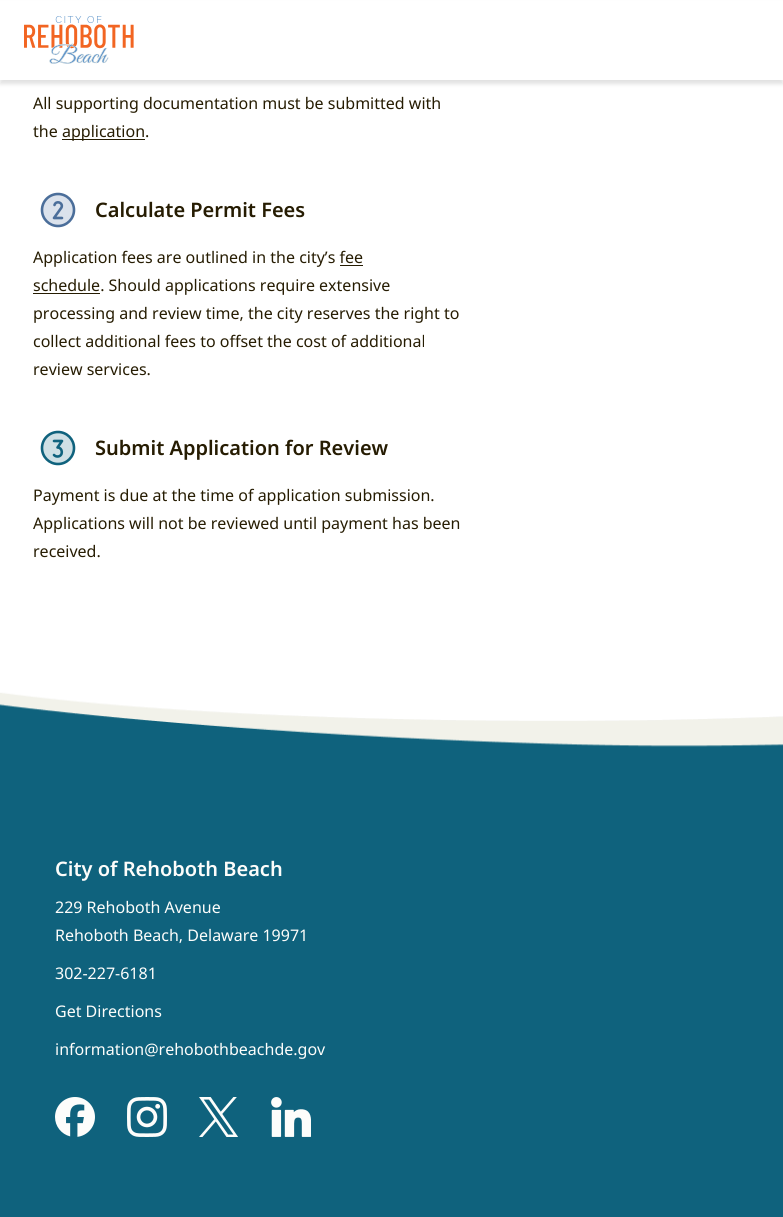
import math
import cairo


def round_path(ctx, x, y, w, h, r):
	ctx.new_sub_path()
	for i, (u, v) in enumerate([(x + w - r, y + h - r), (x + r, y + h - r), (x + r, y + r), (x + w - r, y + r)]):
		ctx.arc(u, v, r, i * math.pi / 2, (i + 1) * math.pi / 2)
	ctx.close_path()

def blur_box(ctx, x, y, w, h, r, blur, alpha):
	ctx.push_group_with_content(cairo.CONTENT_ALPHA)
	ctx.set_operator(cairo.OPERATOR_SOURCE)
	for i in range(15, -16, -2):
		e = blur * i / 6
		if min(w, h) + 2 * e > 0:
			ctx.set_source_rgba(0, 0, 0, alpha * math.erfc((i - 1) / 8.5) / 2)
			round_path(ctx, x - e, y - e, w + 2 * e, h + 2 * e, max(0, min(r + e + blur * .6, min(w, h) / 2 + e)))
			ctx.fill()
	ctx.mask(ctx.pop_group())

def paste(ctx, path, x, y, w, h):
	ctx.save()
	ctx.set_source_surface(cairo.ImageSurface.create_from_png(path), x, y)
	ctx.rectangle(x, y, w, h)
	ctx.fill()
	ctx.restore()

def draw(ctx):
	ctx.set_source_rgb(1, 1, 1)
	ctx.paint()
	ctx.set_source_rgb(0.529, 0.529, 0.529)
	blur_box(ctx, 0, 4, 783, 80, 0, 2, 0.25)
	ctx.set_source_rgb(1, 1, 1)
	ctx.rectangle(0, 1, 783, 79)
	ctx.fill()
	paste(ctx, 'media/1.png', 24, 16, 110, 48)
	ctx.select_font_face('Noto Sans')
	ctx.set_font_size(16)
	ctx.set_source_rgb(0.149, 0.11, 0.008)
	ctx.move_to(33, 109)
	ctx.show_text('All supporting documentation must be submitted with')
	ctx.move_to(33, 137)
	ctx.show_text('the')
	ctx.rectangle(62, 139, 83, 1)
	ctx.fill()
	ctx.move_to(62, 137)
	ctx.show_text('application.')
	ctx.set_source_rgb(0.859, 0.886, 0.922)
	ctx.new_path()
	ctx.arc(58, 210, 16, 0, 2 * math.pi)
	ctx.fill()
	ctx.new_path()
	ctx.move_to(62, 218)
	ctx.line_to(54, 218)
	ctx.line_to(61.5, 207.5)
	ctx.curve_to(63.5, 202.5, 56, 200, 54.5, 205)
	ctx.set_source_rgb(0.294, 0.431, 0.604)
	ctx.set_line_width(2.6)
	ctx.set_line_cap(cairo.LINE_CAP_ROUND)
	ctx.set_line_join(cairo.LINE_JOIN_ROUND)
	ctx.stroke()
	ctx.arc(58, 210, 16, 0, 2 * math.pi)
	ctx.set_line_cap(cairo.LINE_CAP_BUTT)
	ctx.set_line_join(cairo.LINE_JOIN_MITER)
	ctx.stroke()
	ctx.select_font_face('Noto Sans SemiBold')
	ctx.set_font_size(20)
	ctx.set_source_rgb(0.149, 0.11, 0.008)
	ctx.move_to(95, 217)
	ctx.show_text('Calculate Permit Fees')
	ctx.select_font_face('Noto Sans')
	ctx.set_font_size(16)
	ctx.move_to(33, 263)
	ctx.show_text('Application fees are outlined in the city’s fee')
	ctx.rectangle(33, 293, 67, 1)
	ctx.fill()
	ctx.move_to(33, 291)
	ctx.show_text('schedule. Should applications require extensive')
	ctx.rectangle(340, 265, 23, 1)
	ctx.fill()
	for x, y, s in [
		(33, 319, 'processing and review time, the city reserves the right to'),
		(33, 347, 'collect additional fees to offset the cost of additional'),
		(33, 375, 'review services.'),
	]:
		ctx.move_to(x, y)
		ctx.show_text(s)
	ctx.set_source_rgb(0.812, 0.878, 0.898)
	ctx.new_path()
	ctx.arc(58, 448, 16, 0, 2 * math.pi)
	ctx.fill()
	ctx.new_path()
	ctx.move_to(54, 441)
	ctx.line_to(62, 441)
	ctx.line_to(57.5, 447.5)
	ctx.curve_to(63, 447.5, 63.5, 456.5, 57.5, 456.5)
	ctx.curve_to(56, 456.5, 55, 456, 54, 455)
	ctx.set_source_rgb(0.059, 0.384, 0.49)
	ctx.set_line_cap(cairo.LINE_CAP_ROUND)
	ctx.set_line_join(cairo.LINE_JOIN_ROUND)
	ctx.stroke()
	ctx.arc(58, 448, 16, 0, 2 * math.pi)
	ctx.set_line_cap(cairo.LINE_CAP_BUTT)
	ctx.set_line_join(cairo.LINE_JOIN_MITER)
	ctx.stroke()
	ctx.select_font_face('Noto Sans SemiBold')
	ctx.set_font_size(20)
	ctx.set_source_rgb(0.149, 0.11, 0.008)
	ctx.move_to(95, 455)
	ctx.show_text('Submit Application for Review')
	ctx.select_font_face('Noto Sans')
	ctx.set_font_size(16)
	for x, y, s in [
		(33, 501, 'Payment is due at the time of application submission.'),
		(33, 529, 'Applications will not be reviewed until payment has been'),
		(33, 557, 'received.'),
	]:
		ctx.move_to(x, y)
		ctx.show_text(s)
	ctx.set_source_rgb(0.059, 0.384, 0.49)
	ctx.rectangle(0, 785, 783, 432)
	ctx.fill()
	paste(ctx, 'media/2.png', 0, 692, 783, 93)
	ctx.select_font_face('Noto Sans SemiBold')
	ctx.set_font_size(20)
	ctx.set_source_rgb(0.992, 0.992, 0.984)
	ctx.move_to(55, 876)
	ctx.show_text('City of Rehoboth Beach')
	ctx.select_font_face('Noto Sans')
	ctx.set_font_size(16)
	for x, y, s in [
		(55, 913, '229 Rehoboth Avenue'),
		(55, 941, 'Rehoboth Beach, Delaware 19971'),
		(55, 979, '302-227-6181'),
		(55, 1017, 'Get Directions'),
		(55, 1055, 'information@rehobothbeachde.gov'),
	]:
		ctx.move_to(x, y)
		ctx.show_text(s)
	paste(ctx, 'media/3.png', 55, 1097, 40, 40)
	paste(ctx, 'media/4.png', 127, 1097, 40, 40)
	paste(ctx, 'media/5.png', 199, 1097, 39, 40)
	paste(ctx, 'media/6.png', 271, 1097, 40, 40)


surface = cairo.ImageSurface(cairo.FORMAT_RGB24, 783, 1217)
ctx = cairo.Context(surface)
options = cairo.FontOptions()
options.set_hint_metrics(cairo.HINT_METRICS_OFF)
options.set_hint_style(cairo.HINT_STYLE_NONE)
ctx.set_font_options(options)
ctx.set_miter_limit(4)
draw(ctx)
surface.write_to_png('image.png')
